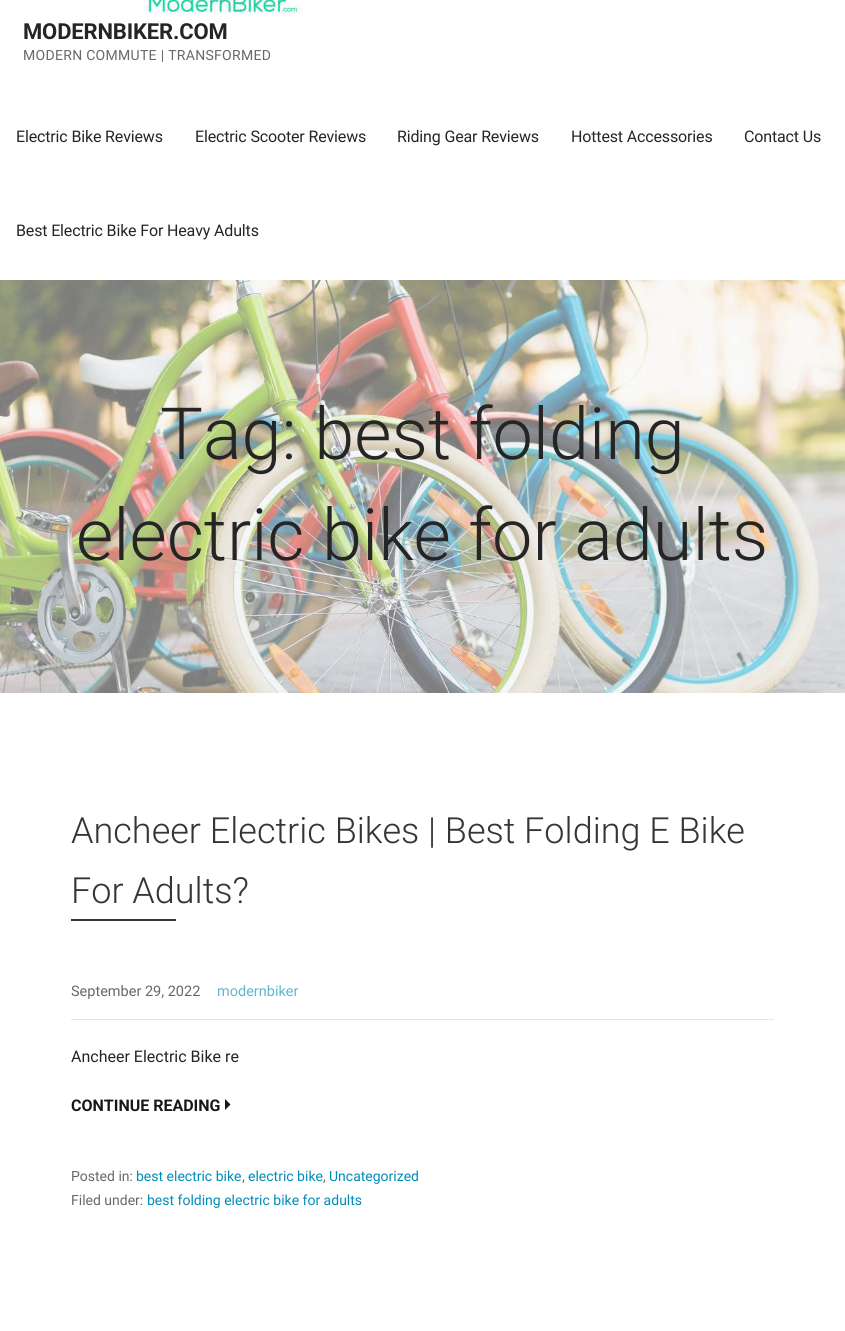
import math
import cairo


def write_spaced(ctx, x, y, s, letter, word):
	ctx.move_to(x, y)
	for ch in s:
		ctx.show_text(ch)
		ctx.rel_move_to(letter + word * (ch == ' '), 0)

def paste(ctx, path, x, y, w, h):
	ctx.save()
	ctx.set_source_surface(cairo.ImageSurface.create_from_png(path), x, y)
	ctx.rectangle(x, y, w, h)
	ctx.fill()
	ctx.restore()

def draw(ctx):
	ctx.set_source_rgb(1, 1, 1)
	ctx.paint()
	paste(ctx, 'media/1.png', 143, 0, 160, 14)
	ctx.select_font_face('Roboto', cairo.FONT_SLANT_NORMAL, cairo.FONT_WEIGHT_BOLD)
	ctx.set_font_size(22)
	ctx.set_source_rgb(0.145, 0.145, 0.145)
	write_spaced(ctx, 23, 39, 'MODERNBIKER.COM', -0.15, 0)
	ctx.select_font_face('Roboto')
	ctx.set_font_size(14)
	ctx.set_source_rgb(0.408, 0.408, 0.408)
	write_spaced(ctx, 23, 60, 'MODERN COMMUTE | TRANSFORMED', 0.3, 0)
	ctx.set_font_size(16)
	ctx.set_source_rgb(0.145, 0.145, 0.145)
	for x, y, s in [
		(16, 142, 'Electric Bike Reviews'),
		(195, 142, 'Electric Scooter Reviews'),
		(397, 142, 'Riding Gear Reviews'),
		(571, 142, 'Hottest Accessories'),
		(744, 142, 'Contact Us'),
		(16, 236, 'Best Electric Bike For Heavy Adults'),
	]:
		write_spaced(ctx, x, y, s, -0.15, 0)
	paste(ctx, 'media/2.png', 0, 280, 845, 413)
	ctx.select_font_face('Roboto Light')
	ctx.set_font_size(72)
	ctx.move_to(160, 459)
	ctx.show_text('Tag: best folding')
	ctx.move_to(76, 560)
	ctx.show_text('electric bike for adults')
	ctx.set_font_size(36)
	ctx.set_source_rgb(0.208, 0.208, 0.208)
	ctx.move_to(71, 843)
	ctx.show_text('Ancheer Electric Bikes | Best Folding E Bike')
	ctx.move_to(71, 903)
	ctx.show_text('For Adults?')
	ctx.rectangle(71, 919, 105, 2)
	ctx.fill()
	ctx.set_source_rgb(0.902, 0.902, 0.902)
	ctx.rectangle(71, 1019, 703, 1)
	ctx.fill()
	ctx.select_font_face('Roboto')
	ctx.set_font_size(14.5)
	ctx.set_source_rgb(0.408, 0.408, 0.408)
	ctx.move_to(71, 996)
	ctx.show_text('September 29, 2022')
	ctx.set_source_rgb(0.384, 0.714, 0.796)
	ctx.move_to(217, 996)
	ctx.show_text('modernbiker')
	ctx.set_font_size(16)
	ctx.set_source_rgb(0.145, 0.145, 0.145)
	ctx.move_to(71, 1062)
	ctx.show_text('Ancheer Electric Bike re')
	ctx.select_font_face('Roboto', cairo.FONT_SLANT_NORMAL, cairo.FONT_WEIGHT_BOLD)
	ctx.set_source_rgb(0.094, 0.094, 0.094)
	ctx.move_to(71, 1111)
	ctx.show_text('CONTINUE READING')
	ctx.new_path()
	ctx.move_to(225, 1110)
	ctx.line_to(230.5, 1104.5)
	ctx.line_to(225, 1099)
	ctx.close_path()
	ctx.fill()
	ctx.select_font_face('Roboto')
	ctx.set_font_size(14)
	ctx.set_source_rgb(0.408, 0.408, 0.408)
	ctx.move_to(71, 1181)
	ctx.show_text('Posted in:')
	ctx.set_source_rgb(0, 0.549, 0.729)
	ctx.move_to(136, 1181)
	ctx.show_text('best electric bike')
	ctx.set_source_rgb(0.408, 0.408, 0.408)
	ctx.move_to(242, 1181)
	ctx.show_text(',')
	ctx.set_source_rgb(0, 0.549, 0.729)
	ctx.move_to(248, 1181)
	ctx.show_text('electric bike')
	ctx.set_source_rgb(0.408, 0.408, 0.408)
	ctx.move_to(323, 1181)
	ctx.show_text(',')
	ctx.set_source_rgb(0, 0.549, 0.729)
	ctx.move_to(329, 1181)
	ctx.show_text('Uncategorized')
	ctx.set_source_rgb(0.408, 0.408, 0.408)
	ctx.move_to(71, 1205)
	ctx.show_text('Filed under:')
	ctx.set_source_rgb(0, 0.549, 0.729)
	ctx.move_to(147, 1205)
	ctx.show_text('best folding electric bike for adults')


surface = cairo.ImageSurface(cairo.FORMAT_RGB24, 845, 1331)
ctx = cairo.Context(surface)
options = cairo.FontOptions()
options.set_hint_metrics(cairo.HINT_METRICS_OFF)
options.set_hint_style(cairo.HINT_STYLE_NONE)
ctx.set_font_options(options)
ctx.set_miter_limit(4)
draw(ctx)
surface.write_to_png('image.png')
